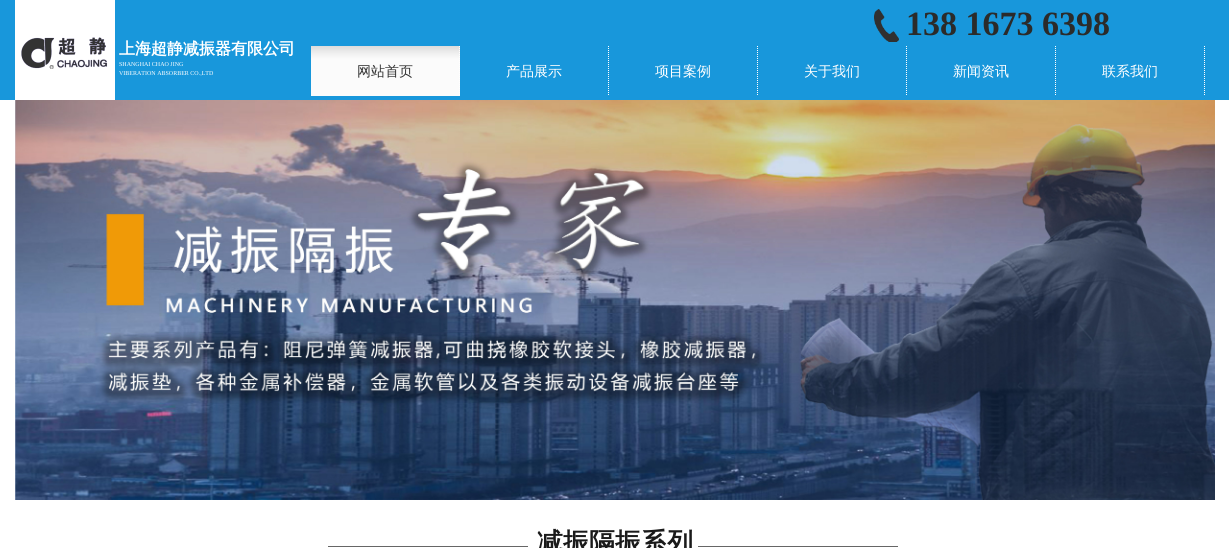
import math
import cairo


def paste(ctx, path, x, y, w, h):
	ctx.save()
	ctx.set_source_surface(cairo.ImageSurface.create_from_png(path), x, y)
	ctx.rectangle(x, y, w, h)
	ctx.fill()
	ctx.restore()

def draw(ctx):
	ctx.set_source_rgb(1, 1, 1)
	ctx.paint()
	ctx.set_source_rgb(0.094, 0.592, 0.859)
	ctx.rectangle(0, 0, 1229, 100)
	ctx.fill()
	paste(ctx, 'media/1.png', 15, 0, 100, 100)
	paste(ctx, 'media/2.png', 874, 9, 25, 33)
	ctx.select_font_face('Liberation Serif', cairo.FONT_SLANT_NORMAL, cairo.FONT_WEIGHT_BOLD)
	ctx.set_font_size(34)
	ctx.set_source_rgb(0.169, 0.169, 0.165)
	ctx.move_to(906, 35)
	ctx.show_text('138 1673 6398')
	ctx.select_font_face('WenQuanYi Zen Hei', cairo.FONT_SLANT_NORMAL, cairo.FONT_WEIGHT_BOLD)
	ctx.set_font_size(16)
	ctx.set_source_rgb(1, 1, 1)
	ctx.move_to(119, 54)
	ctx.show_text('上海超静减振器有限公司')
	ctx.select_font_face('Liberation Serif')
	ctx.set_font_size(6)
	ctx.move_to(119, 66)
	ctx.show_text('SHANGHAI CHAO JING')
	ctx.move_to(119, 75)
	ctx.show_text('VIBERATION ABSORBER CO.,LTD')
	paste(ctx, 'media/3.png', 311, 46, 149, 50)
	ctx.new_path()
	ctx.move_to(459.5, 46)
	ctx.line_to(459.5, 96)
	ctx.set_line_width(1)
	ctx.set_dash([1, 1])
	ctx.stroke()
	ctx.select_font_face('WenQuanYi Zen Hei Medium')
	ctx.set_font_size(14)
	ctx.set_source_rgb(0.2, 0.2, 0.2)
	ctx.move_to(357, 76)
	ctx.show_text('网站首页')
	ctx.new_path()
	ctx.move_to(608.5, 46)
	ctx.line_to(608.5, 96)
	ctx.set_source_rgb(1, 1, 1)
	ctx.stroke()
	ctx.move_to(506, 76)
	ctx.show_text('产品展示')
	ctx.new_path()
	ctx.move_to(757.5, 46)
	ctx.line_to(757.5, 96)
	ctx.stroke()
	ctx.move_to(655, 76)
	ctx.show_text('项目案例')
	ctx.new_path()
	ctx.move_to(906.5, 46)
	ctx.line_to(906.5, 96)
	ctx.stroke()
	ctx.move_to(804, 76)
	ctx.show_text('关于我们')
	ctx.new_path()
	ctx.move_to(1055.5, 46)
	ctx.line_to(1055.5, 96)
	ctx.stroke()
	ctx.move_to(953, 76)
	ctx.show_text('新闻资讯')
	ctx.new_path()
	ctx.move_to(1204.5, 46)
	ctx.line_to(1204.5, 96)
	ctx.stroke()
	ctx.move_to(1102, 76)
	ctx.show_text('联系我们')
	paste(ctx, 'media/4.png', 15, 100, 1200, 400)
	ctx.select_font_face('WenQuanYi Zen Hei', cairo.FONT_SLANT_NORMAL, cairo.FONT_WEIGHT_BOLD)
	ctx.set_font_size(26)
	ctx.set_source_rgb(0.102, 0.102, 0.102)
	ctx.move_to(537, 551)
	ctx.show_text('减振隔振系列')
	ctx.set_source_rgb(0.4, 0.4, 0.4)
	ctx.rectangle(328, 546, 200, 1)
	ctx.fill()
	ctx.rectangle(698, 546, 200, 1)
	ctx.fill()


surface = cairo.ImageSurface(cairo.FORMAT_RGB24, 1229, 548)
ctx = cairo.Context(surface)
options = cairo.FontOptions()
options.set_hint_metrics(cairo.HINT_METRICS_OFF)
options.set_hint_style(cairo.HINT_STYLE_NONE)
ctx.set_font_options(options)
ctx.set_miter_limit(4)
draw(ctx)
surface.write_to_png('image.png')
